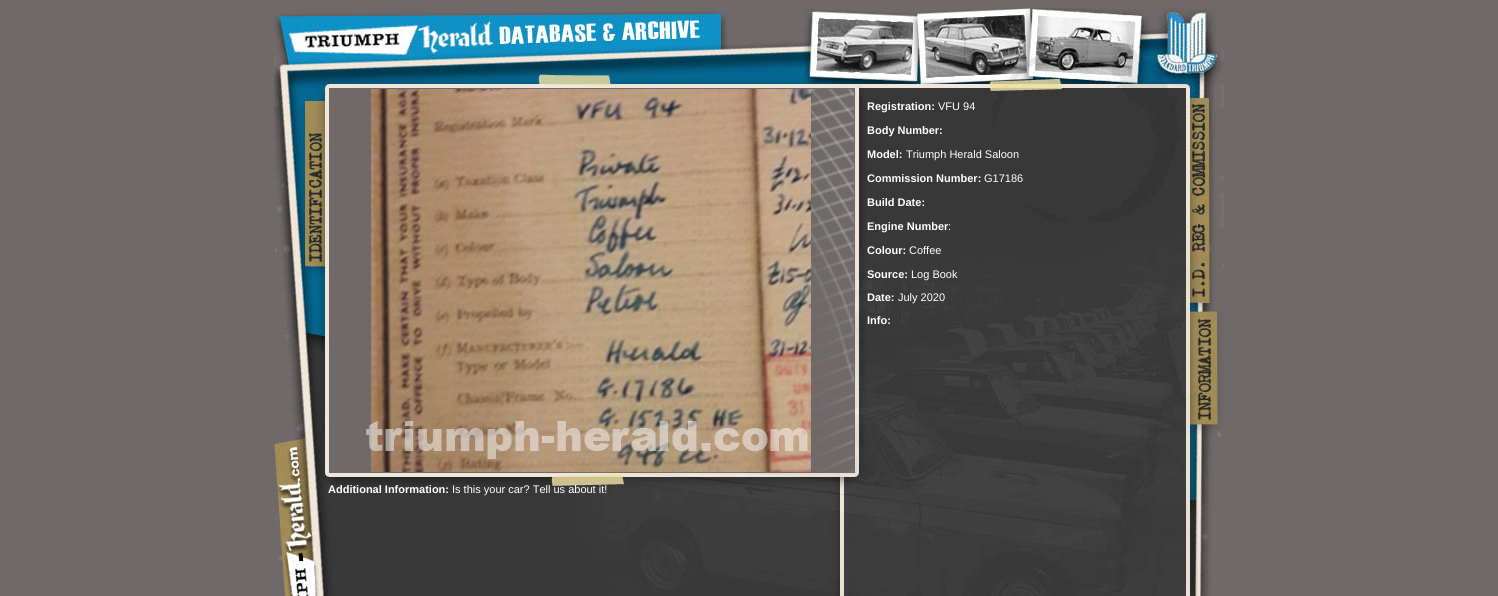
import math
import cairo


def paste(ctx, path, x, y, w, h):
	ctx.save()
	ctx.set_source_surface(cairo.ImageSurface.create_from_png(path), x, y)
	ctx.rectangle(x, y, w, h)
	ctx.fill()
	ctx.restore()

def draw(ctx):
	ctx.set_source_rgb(0.435, 0.416, 0.412)
	ctx.paint()
	paste(ctx, 'media/1.png', 274, 8, 950, 54)
	paste(ctx, 'media/2.png', 274, 62, 54, 534)
	paste(ctx, 'media/3.png', 328, 62, 256, 20)
	paste(ctx, 'media/4.png', 584, 62, 600, 20)
	paste(ctx, 'media/5.png', 1184, 62, 40, 20)
	paste(ctx, 'media/6.png', 328, 82, 896, 7)
	paste(ctx, 'media/7.png', 854, 89, 13, 507)
	paste(ctx, 'media/8.png', 867, 89, 318, 507)
	ctx.select_font_face('Liberation Sans', cairo.FONT_SLANT_NORMAL, cairo.FONT_WEIGHT_BOLD)
	ctx.set_font_size(11)
	ctx.set_source_rgb(1, 1, 1)
	ctx.move_to(867, 110)
	ctx.show_text('Registration:')
	ctx.select_font_face('Liberation Sans')
	ctx.move_to(938, 110)
	ctx.show_text('VFU 94')
	ctx.select_font_face('Liberation Sans', cairo.FONT_SLANT_NORMAL, cairo.FONT_WEIGHT_BOLD)
	ctx.move_to(867, 134)
	ctx.show_text('Body Number:')
	ctx.move_to(867, 158)
	ctx.show_text('Model:')
	ctx.select_font_face('Liberation Sans')
	ctx.move_to(906, 158)
	ctx.show_text('Triumph Herald Saloon')
	ctx.select_font_face('Liberation Sans', cairo.FONT_SLANT_NORMAL, cairo.FONT_WEIGHT_BOLD)
	ctx.move_to(867, 182)
	ctx.show_text('Commission Number:')
	ctx.select_font_face('Liberation Sans')
	ctx.move_to(984, 182)
	ctx.show_text('G17186')
	ctx.select_font_face('Liberation Sans', cairo.FONT_SLANT_NORMAL, cairo.FONT_WEIGHT_BOLD)
	ctx.move_to(867, 206)
	ctx.show_text('Build Date:')
	ctx.move_to(867, 230)
	ctx.show_text('Engine Number')
	ctx.select_font_face('Liberation Sans')
	ctx.move_to(948, 230)
	ctx.show_text(':')
	ctx.select_font_face('Liberation Sans', cairo.FONT_SLANT_NORMAL, cairo.FONT_WEIGHT_BOLD)
	ctx.move_to(867, 254)
	ctx.show_text('Colour:')
	ctx.select_font_face('Liberation Sans')
	ctx.move_to(909, 254)
	ctx.show_text('Coffee')
	ctx.select_font_face('Liberation Sans', cairo.FONT_SLANT_NORMAL, cairo.FONT_WEIGHT_BOLD)
	ctx.move_to(867, 278)
	ctx.show_text('Source:')
	ctx.select_font_face('Liberation Sans')
	ctx.move_to(911, 278)
	ctx.show_text('Log Book')
	ctx.select_font_face('Liberation Sans', cairo.FONT_SLANT_NORMAL, cairo.FONT_WEIGHT_BOLD)
	ctx.move_to(867, 301)
	ctx.show_text('Date:')
	ctx.select_font_face('Liberation Sans')
	ctx.move_to(898, 301)
	ctx.show_text('July 2020')
	ctx.select_font_face('Liberation Sans', cairo.FONT_SLANT_NORMAL, cairo.FONT_WEIGHT_BOLD)
	ctx.move_to(867, 324)
	ctx.show_text('Info:')
	paste(ctx, 'media/9.png', 1185, 89, 39, 507)
	paste(ctx, 'media/10.png', 328, 89, 1, 383)
	paste(ctx, 'media/11.png', 361, 89, 493, 383)
	paste(ctx, 'media/12.png', 328, 472, 526, 11)
	paste(ctx, 'media/13.png', 328, 483, 526, 113)
	ctx.move_to(328, 493)
	ctx.show_text('Additional Information:')
	ctx.select_font_face('Liberation Sans')
	ctx.move_to(452, 493)
	ctx.show_text('Is this your car? Tell us about it!')


surface = cairo.ImageSurface(cairo.FORMAT_RGB24, 1498, 596)
ctx = cairo.Context(surface)
options = cairo.FontOptions()
options.set_hint_metrics(cairo.HINT_METRICS_OFF)
options.set_hint_style(cairo.HINT_STYLE_NONE)
ctx.set_font_options(options)
ctx.set_miter_limit(4)
draw(ctx)
surface.write_to_png('image.png')
